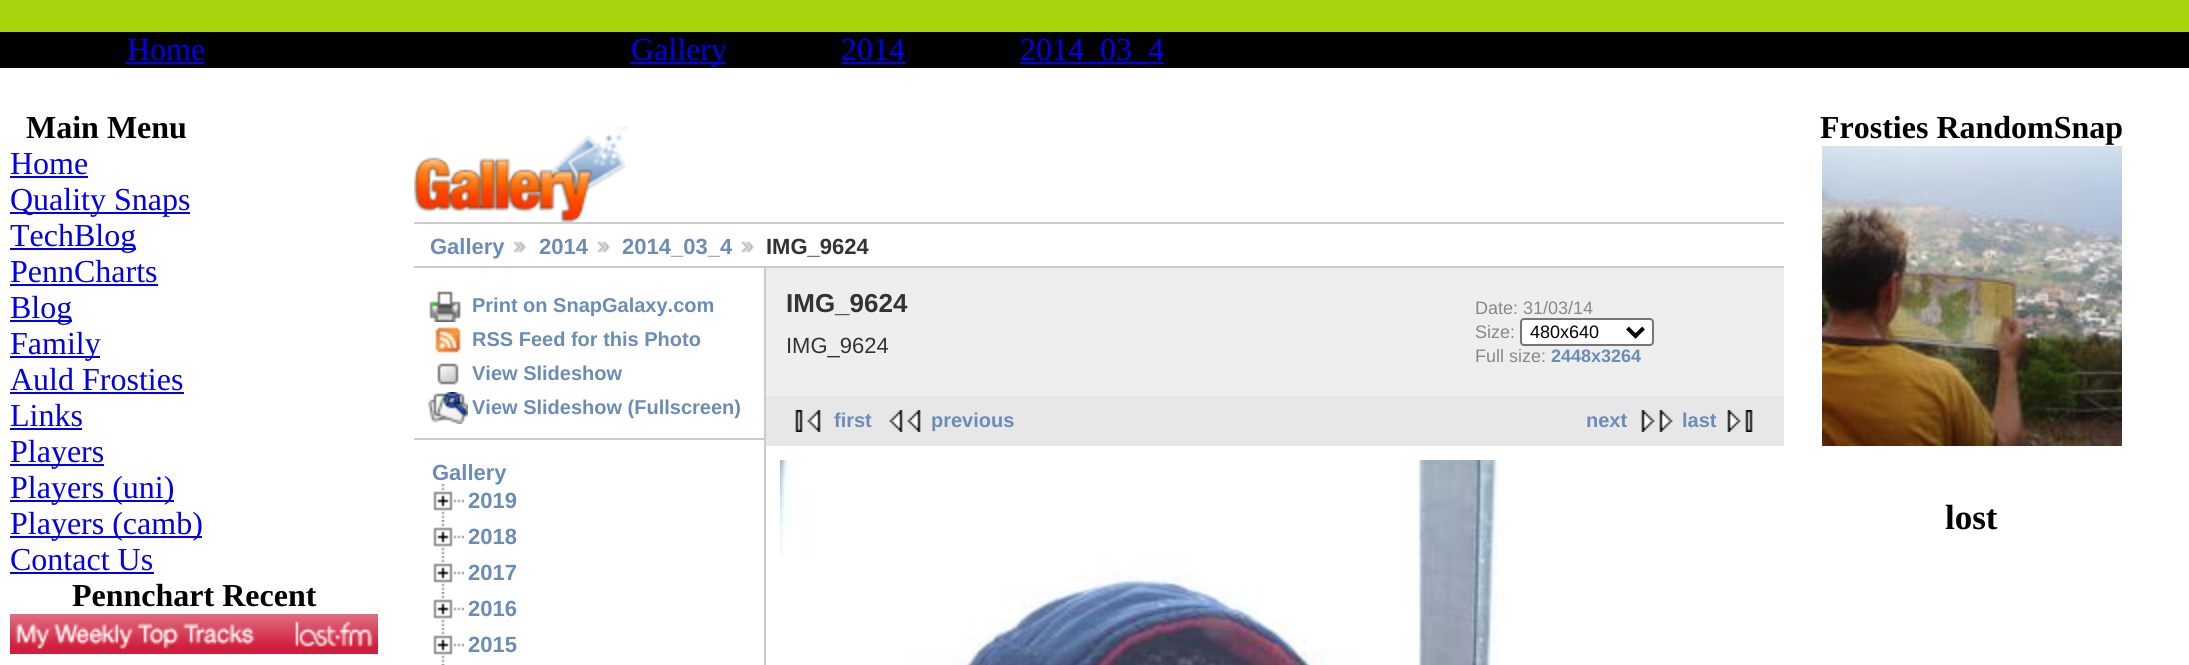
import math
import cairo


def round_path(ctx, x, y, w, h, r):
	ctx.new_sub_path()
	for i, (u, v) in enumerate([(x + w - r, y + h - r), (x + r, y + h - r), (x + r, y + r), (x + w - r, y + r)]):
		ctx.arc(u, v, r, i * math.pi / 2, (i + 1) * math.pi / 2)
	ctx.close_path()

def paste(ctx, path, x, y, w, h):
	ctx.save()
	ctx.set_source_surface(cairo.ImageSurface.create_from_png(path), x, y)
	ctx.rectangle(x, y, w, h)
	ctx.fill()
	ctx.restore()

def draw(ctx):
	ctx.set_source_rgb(1, 1, 1)
	ctx.paint()
	ctx.set_source_rgb(0.647, 0.827, 0.047)
	ctx.rectangle(0, 0, 2189, 32)
	ctx.fill()
	ctx.set_source_rgb(0, 0, 0)
	ctx.rectangle(0, 32, 2189, 36)
	ctx.fill()
	ctx.select_font_face('Liberation Serif')
	ctx.set_font_size(32)
	ctx.set_source_rgb(0, 0, 0.933)
	ctx.move_to(127, 60)
	ctx.show_text('Home')
	ctx.rectangle(126, 62, 78, 2)
	ctx.fill()
	ctx.rectangle(630, 62, 96, 2)
	ctx.fill()
	ctx.move_to(631, 60)
	ctx.show_text('Gallery')
	ctx.move_to(841, 60)
	ctx.show_text('2014')
	ctx.rectangle(842, 62, 64, 2)
	ctx.fill()
	ctx.rectangle(1020, 62, 144, 2)
	ctx.fill()
	ctx.move_to(1020, 60)
	ctx.show_text('2014_03_4')
	ctx.select_font_face('Liberation Serif', cairo.FONT_SLANT_NORMAL, cairo.FONT_WEIGHT_BOLD)
	ctx.set_source_rgb(0, 0, 0)
	ctx.move_to(26, 138)
	ctx.show_text('Main Menu')
	ctx.select_font_face('Liberation Serif')
	ctx.set_source_rgb(0, 0, 0.933)
	ctx.move_to(10, 174)
	ctx.show_text('Home')
	ctx.rectangle(10, 176, 78, 2)
	ctx.fill()
	ctx.rectangle(10, 212, 180, 2)
	ctx.fill()
	ctx.move_to(10, 210)
	ctx.show_text('Quality Snaps')
	ctx.rectangle(10, 248, 126, 2)
	ctx.fill()
	ctx.move_to(10, 246)
	ctx.show_text('TechBlog')
	ctx.move_to(10, 282)
	ctx.show_text('PennCharts')
	ctx.rectangle(10, 284, 148, 2)
	ctx.fill()
	ctx.rectangle(10, 320, 62, 2)
	ctx.fill()
	ctx.move_to(10, 318)
	ctx.show_text('Blog')
	ctx.rectangle(10, 356, 90, 2)
	ctx.fill()
	ctx.move_to(10, 354)
	ctx.show_text('Family')
	ctx.move_to(10, 390)
	ctx.show_text('Auld Frosties')
	ctx.rectangle(10, 392, 174, 2)
	ctx.fill()
	ctx.move_to(10, 426)
	ctx.show_text('Links')
	ctx.rectangle(10, 428, 72, 2)
	ctx.fill()
	ctx.rectangle(10, 464, 94, 2)
	ctx.fill()
	ctx.move_to(10, 462)
	ctx.show_text('Players')
	ctx.rectangle(10, 500, 164, 2)
	ctx.fill()
	ctx.move_to(10, 498)
	ctx.show_text('Players (uni)')
	ctx.rectangle(10, 536, 192, 2)
	ctx.fill()
	ctx.move_to(10, 534)
	ctx.show_text('Players (camb)')
	ctx.move_to(10, 570)
	ctx.show_text('Contact Us')
	ctx.rectangle(10, 572, 144, 2)
	ctx.fill()
	ctx.select_font_face('Liberation Serif', cairo.FONT_SLANT_NORMAL, cairo.FONT_WEIGHT_BOLD)
	ctx.set_source_rgb(0, 0, 0)
	ctx.move_to(72, 606)
	ctx.show_text('Pennchart Recent')
	paste(ctx, 'media/1.png', 10, 614, 368, 40)
	paste(ctx, 'media/2.png', 414, 126, 214, 96)
	ctx.set_source_rgb(0.8, 0.8, 0.8)
	ctx.rectangle(414, 222, 1370, 2)
	ctx.fill()
	ctx.rectangle(414, 266, 1370, 2)
	ctx.fill()
	ctx.select_font_face('Liberation Sans', cairo.FONT_SLANT_NORMAL, cairo.FONT_WEIGHT_BOLD)
	ctx.set_font_size(22)
	ctx.set_source_rgb(0.42, 0.549, 0.718)
	ctx.move_to(430, 254)
	ctx.show_text('Gallery')
	paste(ctx, 'media/3.png', 513, 241, 14, 12)
	ctx.move_to(539, 254)
	ctx.show_text('2014')
	paste(ctx, 'media/3.png', 597, 241, 14, 12)
	ctx.move_to(622, 254)
	ctx.show_text('2014_03_4')
	paste(ctx, 'media/3.png', 741, 241, 14, 12)
	ctx.set_source_rgb(0.2, 0.2, 0.2)
	ctx.move_to(766, 254)
	ctx.show_text('IMG_9624')
	ctx.set_source_rgb(0.8, 0.8, 0.8)
	ctx.rectangle(764, 268, 2, 397)
	ctx.fill()
	ctx.rectangle(414, 438, 350, 2)
	ctx.fill()
	paste(ctx, 'media/4.png', 429, 291, 33, 31)
	ctx.set_font_size(20)
	ctx.set_source_rgb(0.42, 0.549, 0.718)
	ctx.move_to(472, 312)
	ctx.show_text('Print on SnapGalaxy.com')
	paste(ctx, 'media/5.png', 435, 327, 26, 26)
	ctx.move_to(472, 346)
	ctx.show_text('RSS Feed for this Photo')
	paste(ctx, 'media/6.png', 437, 363, 22, 22)
	ctx.move_to(472, 380)
	ctx.show_text('View Slideshow')
	paste(ctx, 'media/7.png', 428, 392, 40, 32)
	ctx.move_to(472, 414)
	ctx.show_text('View Slideshow (Fullscreen)')
	ctx.set_font_size(22)
	ctx.move_to(432, 480)
	ctx.show_text('Gallery')
	paste(ctx, 'media/8.png', 433, 484, 31, 35)
	ctx.move_to(468, 508)
	ctx.show_text('2019')
	paste(ctx, 'media/8.png', 433, 520, 31, 35)
	ctx.move_to(468, 544)
	ctx.show_text('2018')
	paste(ctx, 'media/8.png', 433, 556, 31, 35)
	ctx.move_to(468, 580)
	ctx.show_text('2017')
	paste(ctx, 'media/8.png', 433, 592, 31, 35)
	ctx.move_to(468, 616)
	ctx.show_text('2016')
	paste(ctx, 'media/8.png', 433, 628, 31, 35)
	ctx.move_to(468, 652)
	ctx.show_text('2015')
	paste(ctx, 'media/9.png', 441, 664, 4, 1)
	ctx.set_source_rgb(0.933, 0.933, 0.933)
	ctx.rectangle(766, 268, 1018, 128)
	ctx.fill()
	ctx.set_font_size(26)
	ctx.set_source_rgb(0.2, 0.2, 0.2)
	ctx.move_to(786, 312)
	ctx.show_text('IMG_9624')
	ctx.select_font_face('Liberation Sans')
	ctx.set_font_size(22)
	ctx.move_to(786, 353)
	ctx.show_text('IMG_9624')
	ctx.set_font_size(18)
	ctx.set_source_rgb(0.533, 0.533, 0.533)
	ctx.move_to(1475, 314)
	ctx.show_text('Date: 31/03/14')
	ctx.move_to(1475, 338)
	ctx.show_text('Size:')
	ctx.set_source_rgb(1, 1, 1)
	round_path(ctx, 1521, 319, 132, 26, 3)
	ctx.fill_preserve()
	ctx.set_source_rgb(0.463, 0.463, 0.463)
	ctx.stroke()
	ctx.new_path()
	ctx.move_to(1627.5, 328)
	ctx.line_to(1635.5, 336)
	ctx.line_to(1643.5, 328)
	ctx.set_source_rgb(0, 0, 0)
	ctx.set_line_width(4)
	ctx.stroke()
	ctx.move_to(1530, 338)
	ctx.show_text('480x640')
	ctx.set_source_rgb(0.533, 0.533, 0.533)
	ctx.move_to(1475, 362)
	ctx.show_text('Full size:')
	ctx.select_font_face('Liberation Sans', cairo.FONT_SLANT_NORMAL, cairo.FONT_WEIGHT_BOLD)
	ctx.set_source_rgb(0.42, 0.549, 0.718)
	ctx.move_to(1551, 362)
	ctx.show_text('2448x3264')
	ctx.set_source_rgb(0.906, 0.906, 0.906)
	ctx.rectangle(766, 396, 1018, 50)
	ctx.fill()
	paste(ctx, 'media/10.png', 795, 410, 26, 22)
	ctx.set_font_size(20)
	ctx.set_source_rgb(0.42, 0.549, 0.718)
	ctx.move_to(834, 427)
	ctx.show_text('first')
	paste(ctx, 'media/11.png', 889, 410, 32, 22)
	ctx.move_to(931, 427)
	ctx.show_text('previous')
	ctx.move_to(1586, 427)
	ctx.show_text('next')
	paste(ctx, 'media/12.png', 1641, 410, 32, 22)
	ctx.move_to(1682, 427)
	ctx.show_text('last')
	paste(ctx, 'media/13.png', 1727, 410, 26, 22)
	paste(ctx, 'media/14.png', 780, 460, 725, 205)
	ctx.select_font_face('Liberation Serif', cairo.FONT_SLANT_NORMAL, cairo.FONT_WEIGHT_BOLD)
	ctx.set_font_size(32)
	ctx.set_source_rgb(0, 0, 0)
	ctx.move_to(1820, 138)
	ctx.show_text('Frosties RandomSnap')
	paste(ctx, 'media/15.png', 1822, 146, 300, 300)
	ctx.set_font_size(35)
	ctx.move_to(1945, 529)
	ctx.show_text('lost')


surface = cairo.ImageSurface(cairo.FORMAT_RGB24, 2189, 665)
ctx = cairo.Context(surface)
options = cairo.FontOptions()
options.set_hint_metrics(cairo.HINT_METRICS_OFF)
options.set_hint_style(cairo.HINT_STYLE_NONE)
ctx.set_font_options(options)
ctx.set_miter_limit(4)
draw(ctx)
surface.write_to_png('image.png')
